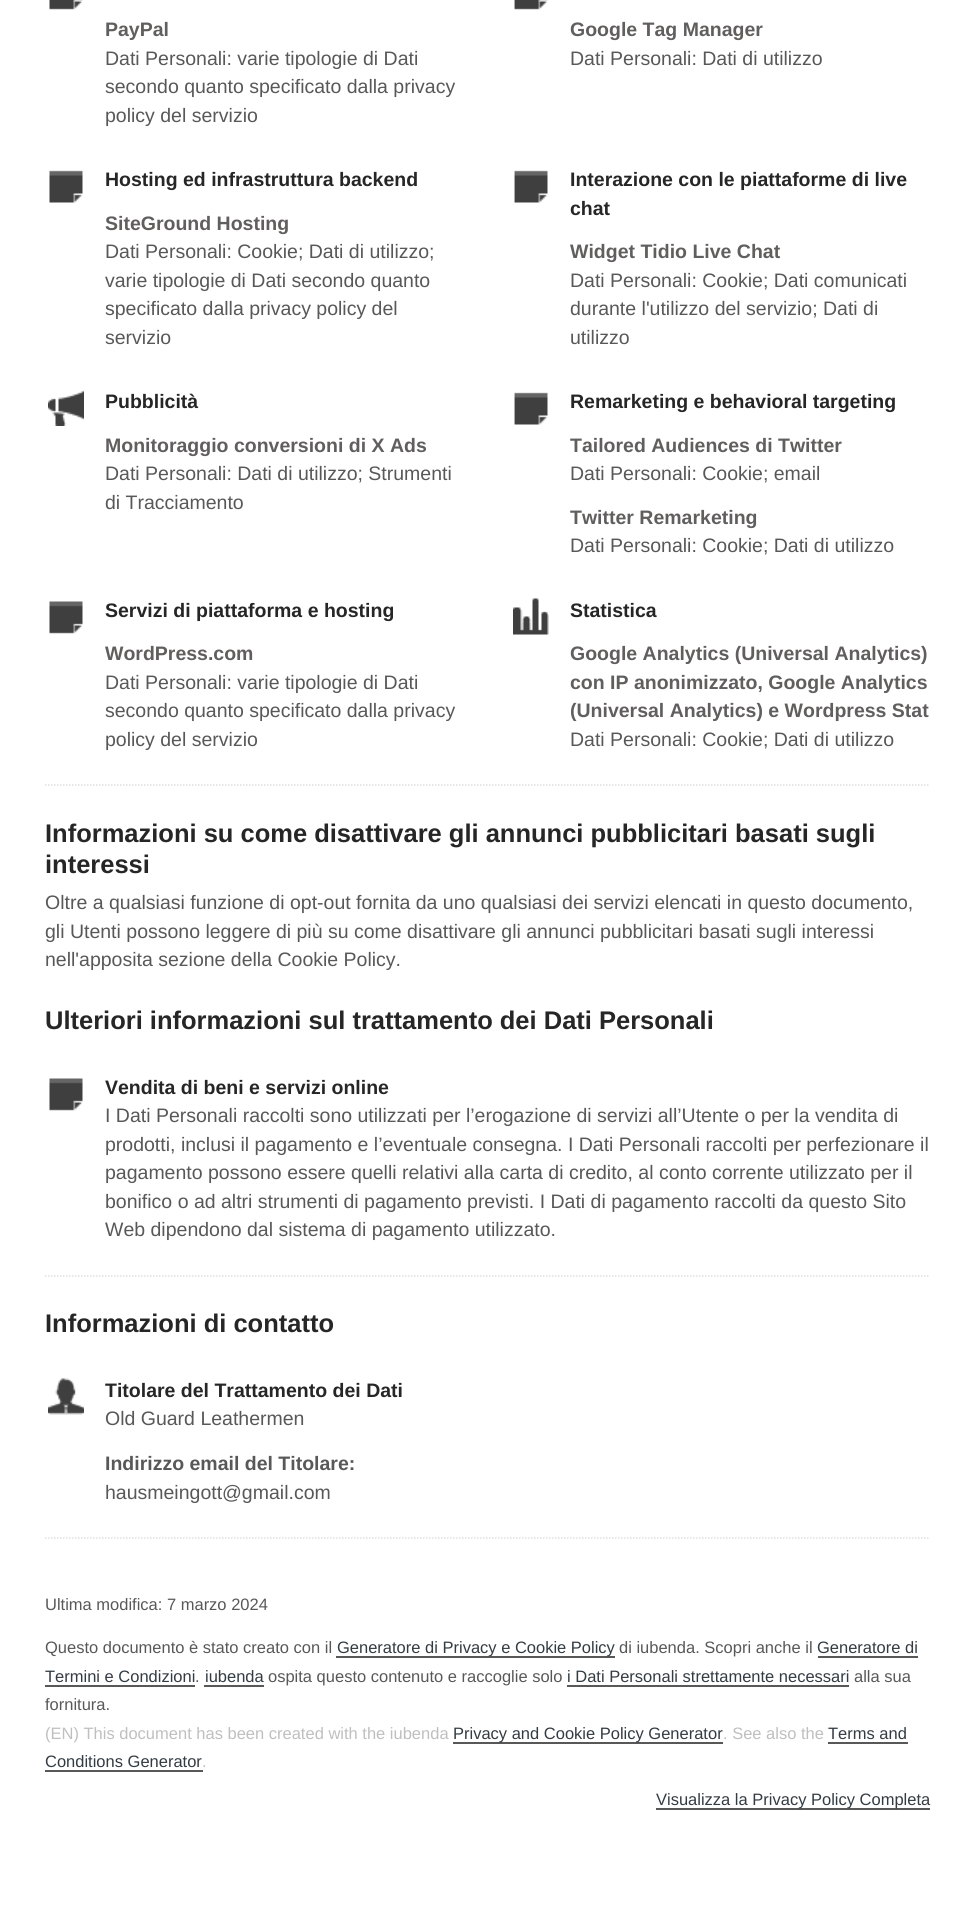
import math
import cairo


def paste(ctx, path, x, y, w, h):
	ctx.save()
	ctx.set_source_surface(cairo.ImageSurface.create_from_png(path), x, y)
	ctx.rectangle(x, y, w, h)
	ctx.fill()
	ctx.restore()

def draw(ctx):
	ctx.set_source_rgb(1, 1, 1)
	ctx.paint()
	ctx.new_path()
	ctx.move_to(45, 785)
	ctx.line_to(930, 785)
	ctx.set_source_rgb(0.875, 0.875, 0.875)
	ctx.set_line_width(1.5)
	ctx.set_dash([1.5, 1.5])
	ctx.stroke()
	paste(ctx, 'media/1.png', 49, 0, 34, 10)
	ctx.select_font_face('Liberation Sans', cairo.FONT_SLANT_NORMAL, cairo.FONT_WEIGHT_BOLD)
	ctx.set_font_size(19.5)
	ctx.set_source_rgb(0.38, 0.369, 0.369)
	ctx.move_to(105, 36)
	ctx.show_text('PayPal')
	ctx.select_font_face('Liberation Sans')
	ctx.set_source_rgb(0.349, 0.345, 0.345)
	for x, y, s in [
		(105, 65, 'Dati Personali: varie tipologie di Dati'),
		(105, 93, 'secondo quanto specificato dalla privacy'),
		(105, 122, 'policy del servizio'),
	]:
		ctx.move_to(x, y)
		ctx.show_text(s)
	paste(ctx, 'media/2.png', 514, 0, 34, 10)
	ctx.select_font_face('Liberation Sans', cairo.FONT_SLANT_NORMAL, cairo.FONT_WEIGHT_BOLD)
	ctx.set_source_rgb(0.38, 0.369, 0.369)
	ctx.move_to(570, 36)
	ctx.show_text('Google Tag Manager')
	ctx.select_font_face('Liberation Sans')
	ctx.set_source_rgb(0.349, 0.345, 0.345)
	ctx.move_to(570, 65)
	ctx.show_text('Dati Personali: Dati di utilizzo')
	paste(ctx, 'media/3.png', 49, 170, 34, 33)
	ctx.select_font_face('Liberation Sans', cairo.FONT_SLANT_NORMAL, cairo.FONT_WEIGHT_BOLD)
	ctx.set_source_rgb(0.149, 0.149, 0.149)
	ctx.move_to(105, 186)
	ctx.show_text('Hosting ed infrastruttura backend')
	ctx.set_source_rgb(0.38, 0.369, 0.369)
	ctx.move_to(105, 230)
	ctx.show_text('SiteGround Hosting')
	ctx.select_font_face('Liberation Sans')
	ctx.set_source_rgb(0.349, 0.345, 0.345)
	for x, y, s in [
		(105, 258, 'Dati Personali: Cookie; Dati di utilizzo;'),
		(105, 287, 'varie tipologie di Dati secondo quanto'),
		(105, 315, 'specificato dalla privacy policy del'),
		(105, 344, 'servizio'),
	]:
		ctx.move_to(x, y)
		ctx.show_text(s)
	paste(ctx, 'media/4.png', 514, 170, 34, 33)
	ctx.select_font_face('Liberation Sans', cairo.FONT_SLANT_NORMAL, cairo.FONT_WEIGHT_BOLD)
	ctx.set_source_rgb(0.149, 0.149, 0.149)
	ctx.move_to(570, 186)
	ctx.show_text('Interazione con le piattaforme di live')
	ctx.move_to(570, 215)
	ctx.show_text('chat')
	ctx.set_source_rgb(0.38, 0.369, 0.369)
	ctx.move_to(570, 258)
	ctx.show_text('Widget Tidio Live Chat')
	ctx.select_font_face('Liberation Sans')
	ctx.set_source_rgb(0.349, 0.345, 0.345)
	for x, y, s in [
		(570, 287, 'Dati Personali: Cookie; Dati comunicati'),
		(570, 315, 'durante l\'utilizzo del servizio; Dati di'),
		(570, 344, 'utilizzo'),
	]:
		ctx.move_to(x, y)
		ctx.show_text(s)
	paste(ctx, 'media/5.png', 48, 390, 36, 36)
	ctx.select_font_face('Liberation Sans', cairo.FONT_SLANT_NORMAL, cairo.FONT_WEIGHT_BOLD)
	ctx.set_source_rgb(0.149, 0.149, 0.149)
	ctx.move_to(105, 408)
	ctx.show_text('Pubblicità')
	ctx.set_source_rgb(0.38, 0.369, 0.369)
	ctx.move_to(105, 452)
	ctx.show_text('Monitoraggio conversioni di X Ads')
	ctx.select_font_face('Liberation Sans')
	ctx.set_source_rgb(0.349, 0.345, 0.345)
	ctx.move_to(105, 480)
	ctx.show_text('Dati Personali: Dati di utilizzo; Strumenti')
	ctx.move_to(105, 509)
	ctx.show_text('di Tracciamento')
	paste(ctx, 'media/4.png', 514, 392, 34, 33)
	ctx.select_font_face('Liberation Sans', cairo.FONT_SLANT_NORMAL, cairo.FONT_WEIGHT_BOLD)
	ctx.set_source_rgb(0.149, 0.149, 0.149)
	ctx.move_to(570, 408)
	ctx.show_text('Remarketing e behavioral targeting')
	ctx.set_source_rgb(0.38, 0.369, 0.369)
	ctx.move_to(570, 452)
	ctx.show_text('Tailored Audiences di Twitter')
	ctx.select_font_face('Liberation Sans')
	ctx.set_source_rgb(0.349, 0.345, 0.345)
	ctx.move_to(570, 480)
	ctx.show_text('Dati Personali: Cookie; email')
	ctx.select_font_face('Liberation Sans', cairo.FONT_SLANT_NORMAL, cairo.FONT_WEIGHT_BOLD)
	ctx.set_source_rgb(0.38, 0.369, 0.369)
	ctx.move_to(570, 524)
	ctx.show_text('Twitter Remarketing')
	ctx.select_font_face('Liberation Sans')
	ctx.set_source_rgb(0.349, 0.345, 0.345)
	ctx.move_to(570, 552)
	ctx.show_text('Dati Personali: Cookie; Dati di utilizzo')
	paste(ctx, 'media/6.png', 49, 601, 34, 33)
	ctx.select_font_face('Liberation Sans', cairo.FONT_SLANT_NORMAL, cairo.FONT_WEIGHT_BOLD)
	ctx.set_source_rgb(0.149, 0.149, 0.149)
	ctx.move_to(105, 617)
	ctx.show_text('Servizi di piattaforma e hosting')
	ctx.set_source_rgb(0.38, 0.369, 0.369)
	ctx.move_to(105, 660)
	ctx.show_text('WordPress.com')
	ctx.select_font_face('Liberation Sans')
	ctx.set_source_rgb(0.349, 0.345, 0.345)
	for x, y, s in [
		(105, 689, 'Dati Personali: varie tipologie di Dati'),
		(105, 717, 'secondo quanto specificato dalla privacy'),
		(105, 746, 'policy del servizio'),
	]:
		ctx.move_to(x, y)
		ctx.show_text(s)
	paste(ctx, 'media/7.png', 513, 598, 36, 37)
	ctx.select_font_face('Liberation Sans', cairo.FONT_SLANT_NORMAL, cairo.FONT_WEIGHT_BOLD)
	ctx.set_source_rgb(0.149, 0.149, 0.149)
	ctx.move_to(570, 617)
	ctx.show_text('Statistica')
	ctx.set_source_rgb(0.38, 0.369, 0.369)
	for x, y, s in [
		(570, 660, 'Google Analytics (Universal Analytics)'),
		(570, 689, 'con IP anonimizzato, Google Analytics'),
		(570, 717, '(Universal Analytics) e Wordpress Stat'),
	]:
		ctx.move_to(x, y)
		ctx.show_text(s)
	ctx.select_font_face('Liberation Sans')
	ctx.set_source_rgb(0.349, 0.345, 0.345)
	ctx.move_to(570, 746)
	ctx.show_text('Dati Personali: Cookie; Dati di utilizzo')
	ctx.select_font_face('Liberation Sans', cairo.FONT_SLANT_NORMAL, cairo.FONT_WEIGHT_BOLD)
	ctx.set_font_size(25.5)
	ctx.set_source_rgb(0.149, 0.149, 0.149)
	ctx.move_to(45, 842)
	ctx.show_text('Informazioni su come disattivare gli annunci pubblicitari basati sugli')
	ctx.move_to(45, 873)
	ctx.show_text('interessi')
	ctx.select_font_face('Liberation Sans')
	ctx.set_font_size(19.5)
	ctx.set_source_rgb(0.349, 0.345, 0.345)
	for x, y, s in [
		(45, 909, 'Oltre a qualsiasi funzione di opt-out fornita da uno qualsiasi dei servizi elencati in questo documento,'),
		(45, 938, 'gli Utenti possono leggere di più su come disattivare gli annunci pubblicitari basati sugli interessi'),
		(45, 966, 'nell\'apposita sezione della Cookie Policy.'),
	]:
		ctx.move_to(x, y)
		ctx.show_text(s)
	ctx.select_font_face('Liberation Sans', cairo.FONT_SLANT_NORMAL, cairo.FONT_WEIGHT_BOLD)
	ctx.set_font_size(25.5)
	ctx.set_source_rgb(0.149, 0.149, 0.149)
	ctx.move_to(45, 1029)
	ctx.show_text('Ulteriori informazioni sul trattamento dei Dati Personali')
	ctx.new_path()
	ctx.move_to(45, 1276)
	ctx.line_to(930, 1276)
	ctx.set_source_rgb(0.875, 0.875, 0.875)
	ctx.stroke()
	paste(ctx, 'media/6.png', 49, 1078, 34, 33)
	ctx.set_font_size(19.5)
	ctx.set_source_rgb(0.149, 0.149, 0.149)
	ctx.move_to(105, 1094)
	ctx.show_text('Vendita di beni e servizi online')
	ctx.select_font_face('Liberation Sans')
	ctx.set_source_rgb(0.349, 0.345, 0.345)
	for x, y, s in [
		(105, 1122, 'I Dati Personali raccolti sono utilizzati per l’erogazione di servizi all’Utente o per la vendita di'),
		(105, 1151, 'prodotti, inclusi il pagamento e l’eventuale consegna. I Dati Personali raccolti per perfezionare il'),
		(105, 1179, 'pagamento possono essere quelli relativi alla carta di credito, al conto corrente utilizzato per il'),
		(105, 1208, 'bonifico o ad altri strumenti di pagamento previsti. I Dati di pagamento raccolti da questo Sito'),
		(105, 1236, 'Web dipendono dal sistema di pagamento utilizzato.'),
	]:
		ctx.move_to(x, y)
		ctx.show_text(s)
	ctx.select_font_face('Liberation Sans', cairo.FONT_SLANT_NORMAL, cairo.FONT_WEIGHT_BOLD)
	ctx.set_font_size(25.5)
	ctx.set_source_rgb(0.149, 0.149, 0.149)
	ctx.move_to(45, 1332)
	ctx.show_text('Informazioni di contatto')
	ctx.new_path()
	ctx.move_to(45, 1538)
	ctx.line_to(930, 1538)
	ctx.set_source_rgb(0.875, 0.875, 0.875)
	ctx.stroke()
	paste(ctx, 'media/8.png', 48, 1378, 36, 37)
	ctx.set_font_size(19.5)
	ctx.set_source_rgb(0.149, 0.149, 0.149)
	ctx.move_to(105, 1397)
	ctx.show_text('Titolare del Trattamento dei Dati')
	ctx.select_font_face('Liberation Sans')
	ctx.set_source_rgb(0.349, 0.345, 0.345)
	ctx.move_to(105, 1425)
	ctx.show_text('Old Guard Leathermen')
	ctx.select_font_face('Liberation Sans', cairo.FONT_SLANT_NORMAL, cairo.FONT_WEIGHT_BOLD)
	ctx.move_to(105, 1470)
	ctx.show_text('Indirizzo email del Titolare:')
	ctx.select_font_face('Liberation Sans')
	ctx.move_to(105, 1499)
	ctx.show_text('hausmeingott@gmail.com')
	ctx.set_font_size(16.5)
	ctx.move_to(45, 1610)
	ctx.show_text('Ultima modifica: 7 marzo 2024')
	ctx.move_to(45, 1653)
	ctx.show_text('Questo documento è stato creato con il')
	ctx.rectangle(336, 1656, 279, 2)
	ctx.fill()
	ctx.set_source_rgb(0.2, 0.231, 0.263)
	ctx.move_to(337, 1653)
	ctx.show_text('Generatore di Privacy e Cookie Policy')
	ctx.set_source_rgb(0.349, 0.345, 0.345)
	ctx.move_to(619, 1653)
	ctx.show_text('di iubenda. Scopri anche il')
	ctx.set_source_rgb(0.2, 0.231, 0.263)
	ctx.move_to(817, 1653)
	ctx.show_text('Generatore di')
	ctx.set_source_rgb(0.349, 0.345, 0.345)
	ctx.rectangle(818, 1656, 100, 2)
	ctx.fill()
	ctx.set_source_rgb(0.2, 0.231, 0.263)
	ctx.move_to(45, 1682)
	ctx.show_text('Termini e Condizioni')
	ctx.set_source_rgb(0.349, 0.345, 0.345)
	ctx.rectangle(45, 1685, 150, 2)
	ctx.fill()
	ctx.move_to(195, 1682)
	ctx.show_text('.')
	ctx.set_source_rgb(0.2, 0.231, 0.263)
	ctx.move_to(205, 1682)
	ctx.show_text('iubenda')
	ctx.set_source_rgb(0.349, 0.345, 0.345)
	ctx.rectangle(204, 1685, 60, 2)
	ctx.fill()
	ctx.move_to(268, 1682)
	ctx.show_text('ospita questo contenuto e raccoglie solo')
	ctx.set_source_rgb(0.2, 0.231, 0.263)
	ctx.move_to(567, 1682)
	ctx.show_text('i Dati Personali strettamente necessari')
	ctx.set_source_rgb(0.349, 0.345, 0.345)
	ctx.rectangle(567, 1685, 282, 2)
	ctx.fill()
	ctx.move_to(854, 1682)
	ctx.show_text('alla sua')
	ctx.move_to(45, 1710)
	ctx.show_text('fornitura.')
	ctx.set_source_rgb(0.749, 0.749, 0.749)
	ctx.move_to(45, 1739)
	ctx.show_text('(EN) This document has been created with the iubenda')
	ctx.set_source_rgb(0.349, 0.345, 0.345)
	ctx.rectangle(453, 1742, 270, 2)
	ctx.fill()
	ctx.set_source_rgb(0.2, 0.231, 0.263)
	ctx.move_to(453, 1739)
	ctx.show_text('Privacy and Cookie Policy Generator')
	ctx.set_source_rgb(0.749, 0.749, 0.749)
	ctx.move_to(723, 1739)
	ctx.show_text('. See also the')
	ctx.set_source_rgb(0.2, 0.231, 0.263)
	ctx.move_to(828, 1739)
	ctx.show_text('Terms and')
	ctx.set_source_rgb(0.349, 0.345, 0.345)
	ctx.rectangle(828, 1742, 80, 2)
	ctx.fill()
	ctx.set_source_rgb(0.2, 0.231, 0.263)
	ctx.move_to(45, 1767)
	ctx.show_text('Conditions Generator')
	ctx.set_source_rgb(0.749, 0.749, 0.749)
	ctx.move_to(202, 1767)
	ctx.show_text('.')
	ctx.set_source_rgb(0.349, 0.345, 0.345)
	ctx.rectangle(45, 1770, 158, 2)
	ctx.fill()
	ctx.rectangle(656, 1808, 274, 2)
	ctx.fill()
	ctx.set_source_rgb(0.2, 0.231, 0.263)
	ctx.move_to(656, 1805)
	ctx.show_text('Visualizza la Privacy Policy Completa')


surface = cairo.ImageSurface(cairo.FORMAT_RGB24, 974, 1910)
ctx = cairo.Context(surface)
options = cairo.FontOptions()
options.set_hint_metrics(cairo.HINT_METRICS_OFF)
options.set_hint_style(cairo.HINT_STYLE_NONE)
ctx.set_font_options(options)
ctx.set_miter_limit(4)
draw(ctx)
surface.write_to_png('image.png')
